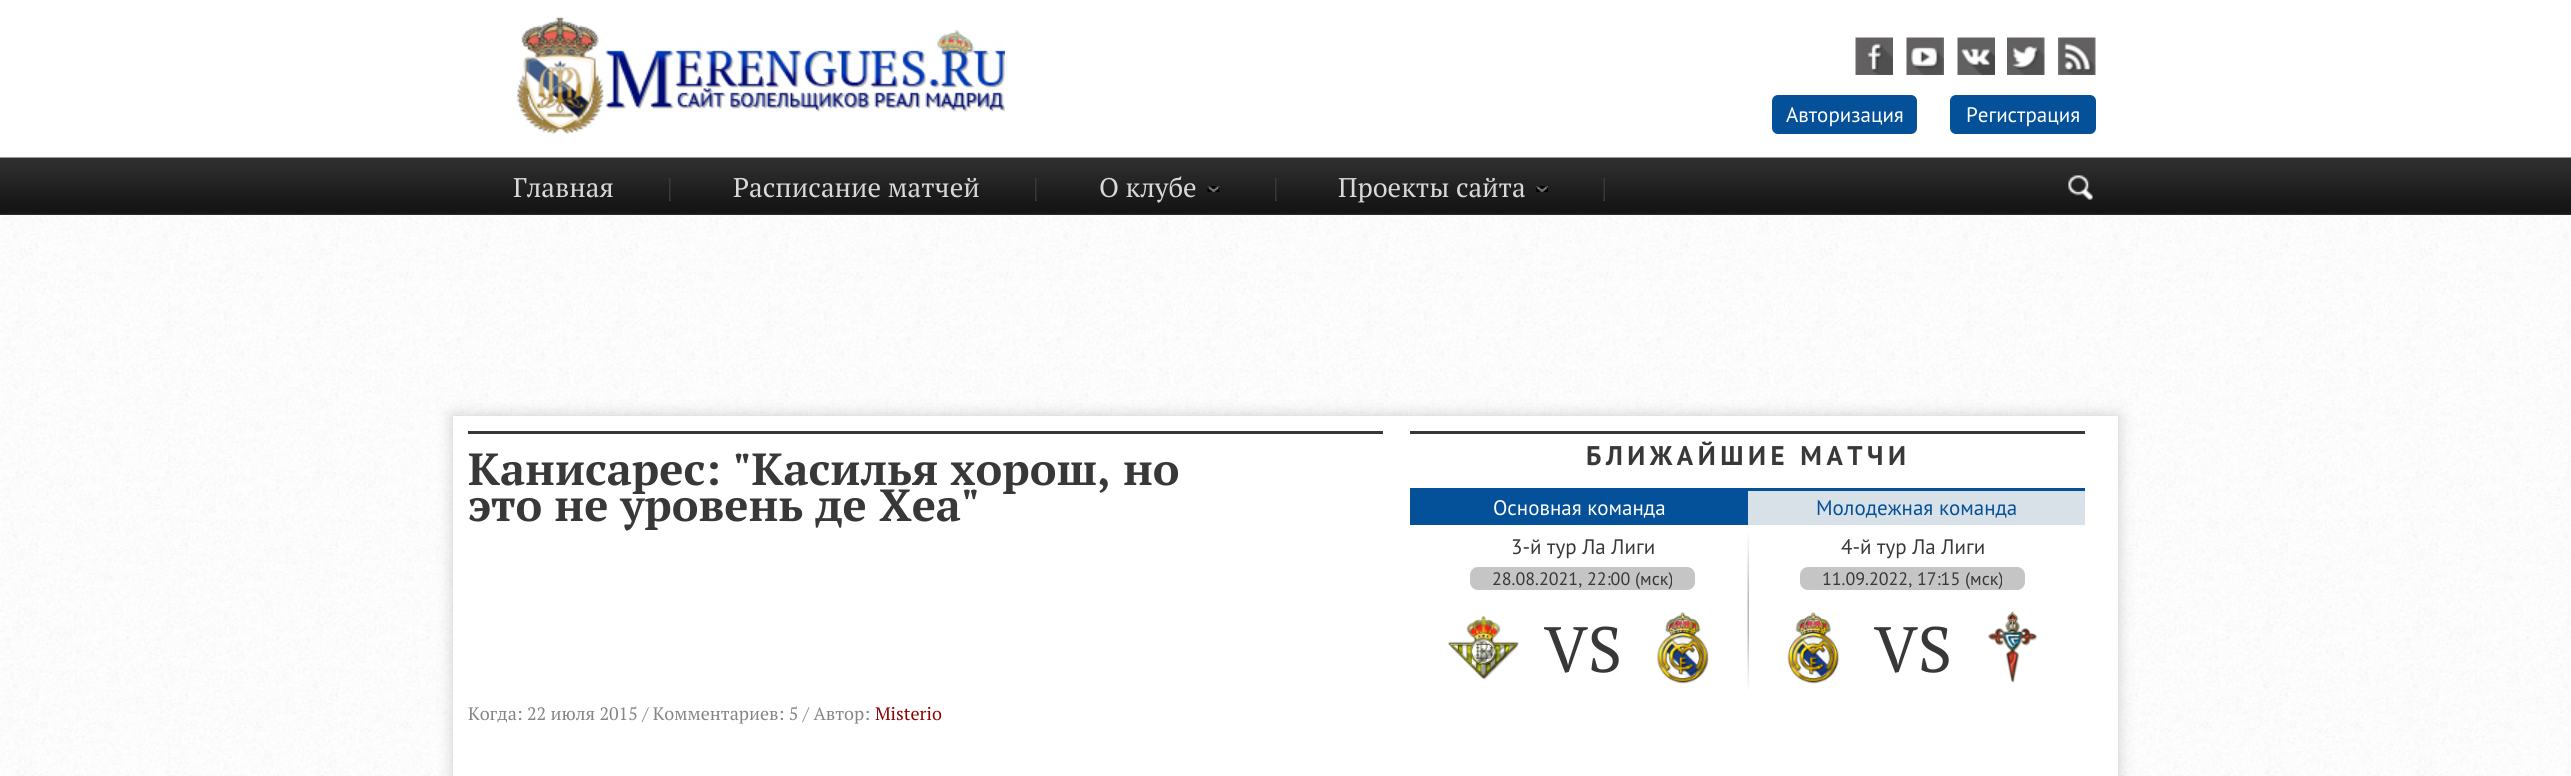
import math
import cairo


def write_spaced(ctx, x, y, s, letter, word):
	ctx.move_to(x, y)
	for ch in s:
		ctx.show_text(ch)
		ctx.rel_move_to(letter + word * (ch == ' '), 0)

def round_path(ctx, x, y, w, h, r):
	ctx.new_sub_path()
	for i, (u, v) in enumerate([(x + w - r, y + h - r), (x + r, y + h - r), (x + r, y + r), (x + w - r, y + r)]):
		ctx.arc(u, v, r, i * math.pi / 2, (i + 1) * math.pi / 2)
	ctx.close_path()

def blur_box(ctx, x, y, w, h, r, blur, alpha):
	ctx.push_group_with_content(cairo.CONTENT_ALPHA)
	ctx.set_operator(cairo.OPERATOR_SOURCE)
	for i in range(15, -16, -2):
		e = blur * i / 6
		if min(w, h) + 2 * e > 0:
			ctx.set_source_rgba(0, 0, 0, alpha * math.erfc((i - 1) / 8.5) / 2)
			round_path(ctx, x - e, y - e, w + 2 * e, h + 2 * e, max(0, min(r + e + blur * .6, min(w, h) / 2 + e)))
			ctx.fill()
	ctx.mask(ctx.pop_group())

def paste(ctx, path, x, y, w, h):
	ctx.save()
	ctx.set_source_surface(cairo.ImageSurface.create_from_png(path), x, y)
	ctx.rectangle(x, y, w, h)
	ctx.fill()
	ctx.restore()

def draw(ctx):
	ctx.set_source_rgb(1, 1, 1)
	ctx.paint()
	paste(ctx, 'media/1.png', 0, 215, 2571, 561)
	paste(ctx, 'media/2.png', 517, 16, 488, 118)
	paste(ctx, 'media/3.png', 1855, 37, 38, 38)
	paste(ctx, 'media/4.png', 1906, 37, 38, 38)
	paste(ctx, 'media/5.png', 1957, 37, 38, 38)
	paste(ctx, 'media/6.png', 2007, 37, 38, 38)
	paste(ctx, 'media/7.png', 2058, 37, 38, 38)
	ctx.set_source_rgb(0.02, 0.318, 0.6)
	round_path(ctx, 1773, 96, 143, 37, 5)
	ctx.fill_preserve()
	ctx.set_source_rgb(0.016, 0.318, 0.6)
	ctx.stroke()
	ctx.select_font_face('PT Sans')
	ctx.set_font_size(21)
	ctx.set_source_rgb(1, 1, 1)
	ctx.move_to(1786, 122)
	ctx.show_text('Авторизация')
	ctx.set_source_rgb(0.02, 0.318, 0.6)
	round_path(ctx, 1951, 96, 144, 37, 5)
	ctx.fill_preserve()
	ctx.set_source_rgb(0.016, 0.318, 0.6)
	ctx.stroke()
	ctx.set_source_rgb(1, 1, 1)
	ctx.move_to(1966, 122)
	ctx.show_text('Регистрация')
	ctx.set_source_rgb(0.216, 0.216, 0.216)
	ctx.rectangle(0, 214, 2571, 1)
	ctx.fill()
	paste(ctx, 'media/8.png', 0, 157, 2571, 58)
	paste(ctx, 'media/9.png', 669, 178, 2, 23)
	ctx.select_font_face('PT Serif')
	ctx.set_font_size(27)
	ctx.set_source_rgb(0.847, 0.847, 0.847)
	ctx.move_to(513, 197)
	ctx.show_text('Главная')
	paste(ctx, 'media/9.png', 1035, 178, 2, 23)
	ctx.move_to(733, 197)
	ctx.show_text('Расписание матчей')
	paste(ctx, 'media/9.png', 1275, 178, 2, 23)
	paste(ctx, 'media/10.png', 1207, 186, 13, 6)
	ctx.move_to(1099, 197)
	ctx.show_text('О клубе')
	paste(ctx, 'media/11.png', 1603, 178, 2, 23)
	paste(ctx, 'media/12.png', 1536, 186, 12, 6)
	ctx.move_to(1338, 197)
	ctx.show_text('Проекты сайта')
	paste(ctx, 'media/13.png', 2068, 175, 25, 25)
	ctx.set_source_rgb(0, 0, 0)
	blur_box(ctx, 453, 416, 1665, 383, 0, 7.5, 0.2)
	ctx.set_source_rgb(1, 1, 1)
	ctx.rectangle(453, 416, 1665, 360)
	ctx.fill()
	ctx.set_source_rgb(0.22, 0.22, 0.22)
	ctx.rectangle(468, 431, 915, 3)
	ctx.fill()
	ctx.select_font_face('PT Serif', cairo.FONT_SLANT_NORMAL, cairo.FONT_WEIGHT_BOLD)
	ctx.set_font_size(45)
	ctx.move_to(468, 485)
	ctx.show_text('Канисарес: "Касилья хорош, но')
	ctx.move_to(468, 521)
	ctx.show_text('это не уровень де Хеа"')
	ctx.select_font_face('PT Serif')
	ctx.set_font_size(18)
	ctx.set_source_rgb(0.522, 0.522, 0.522)
	ctx.move_to(468, 720)
	ctx.show_text('Когда: 22 июля 2015 / Комментариев: 5 / Автор:')
	ctx.set_source_rgb(0.565, 0.004, 0.004)
	ctx.move_to(875, 720)
	ctx.show_text('Misterio')
	ctx.set_source_rgb(0.22, 0.22, 0.22)
	ctx.rectangle(1410, 431, 675, 3)
	ctx.fill()
	ctx.select_font_face('PT Sans', cairo.FONT_SLANT_NORMAL, cairo.FONT_WEIGHT_BOLD)
	ctx.set_font_size(27)
	write_spaced(ctx, 1586, 465, 'БЛИЖАЙШИЕ МАТЧИ', 4.5, 0)
	ctx.set_source_rgb(0.016, 0.318, 0.6)
	ctx.rectangle(1410, 488, 338, 37)
	ctx.fill()
	ctx.select_font_face('PT Sans')
	ctx.set_font_size(21)
	ctx.set_source_rgb(1, 1, 1)
	ctx.move_to(1493, 515)
	ctx.show_text('Основная команда')
	ctx.set_source_rgb(0.851, 0.882, 0.91)
	ctx.rectangle(1748, 491, 337, 34)
	ctx.fill()
	ctx.set_source_rgb(0.016, 0.318, 0.6)
	ctx.rectangle(1748, 488, 337, 3)
	ctx.fill()
	ctx.move_to(1816, 515)
	ctx.show_text('Молодежная команда')
	paste(ctx, 'media/14.png', 1747, 533, 2, 157)
	ctx.set_source_rgb(0.22, 0.22, 0.22)
	ctx.move_to(1511, 554)
	ctx.show_text('3-й тур Ла Лиги')
	ctx.set_source_rgb(0.773, 0.773, 0.773)
	round_path(ctx, 1470, 567, 225, 23, 8)
	ctx.fill()
	ctx.set_font_size(18)
	ctx.set_source_rgb(0.22, 0.22, 0.22)
	ctx.move_to(1492, 585)
	ctx.show_text('28.08.2021, 22:00 (мск)')
	paste(ctx, 'media/15.png', 1448, 615, 71, 65)
	ctx.select_font_face('PT Serif')
	ctx.set_font_size(64)
	ctx.move_to(1544, 672)
	ctx.show_text('VS')
	paste(ctx, 'media/16.png', 1657, 612, 52, 72)
	ctx.select_font_face('PT Sans')
	ctx.set_font_size(21)
	ctx.move_to(1841, 554)
	ctx.show_text('4-й тур Ла Лиги')
	ctx.set_source_rgb(0.773, 0.773, 0.773)
	round_path(ctx, 1800, 567, 225, 23, 8)
	ctx.fill()
	ctx.set_font_size(18)
	ctx.set_source_rgb(0.22, 0.22, 0.22)
	ctx.move_to(1822, 585)
	ctx.show_text('11.09.2022, 17:15 (мск)')
	paste(ctx, 'media/17.png', 1787, 612, 53, 72)
	ctx.select_font_face('PT Serif')
	ctx.set_font_size(64)
	ctx.move_to(1874, 672)
	ctx.show_text('VS')
	paste(ctx, 'media/18.png', 1988, 611, 49, 72)


surface = cairo.ImageSurface(cairo.FORMAT_RGB24, 2571, 776)
ctx = cairo.Context(surface)
options = cairo.FontOptions()
options.set_hint_metrics(cairo.HINT_METRICS_OFF)
options.set_hint_style(cairo.HINT_STYLE_NONE)
ctx.set_font_options(options)
ctx.set_miter_limit(4)
draw(ctx)
surface.write_to_png('image.png')
